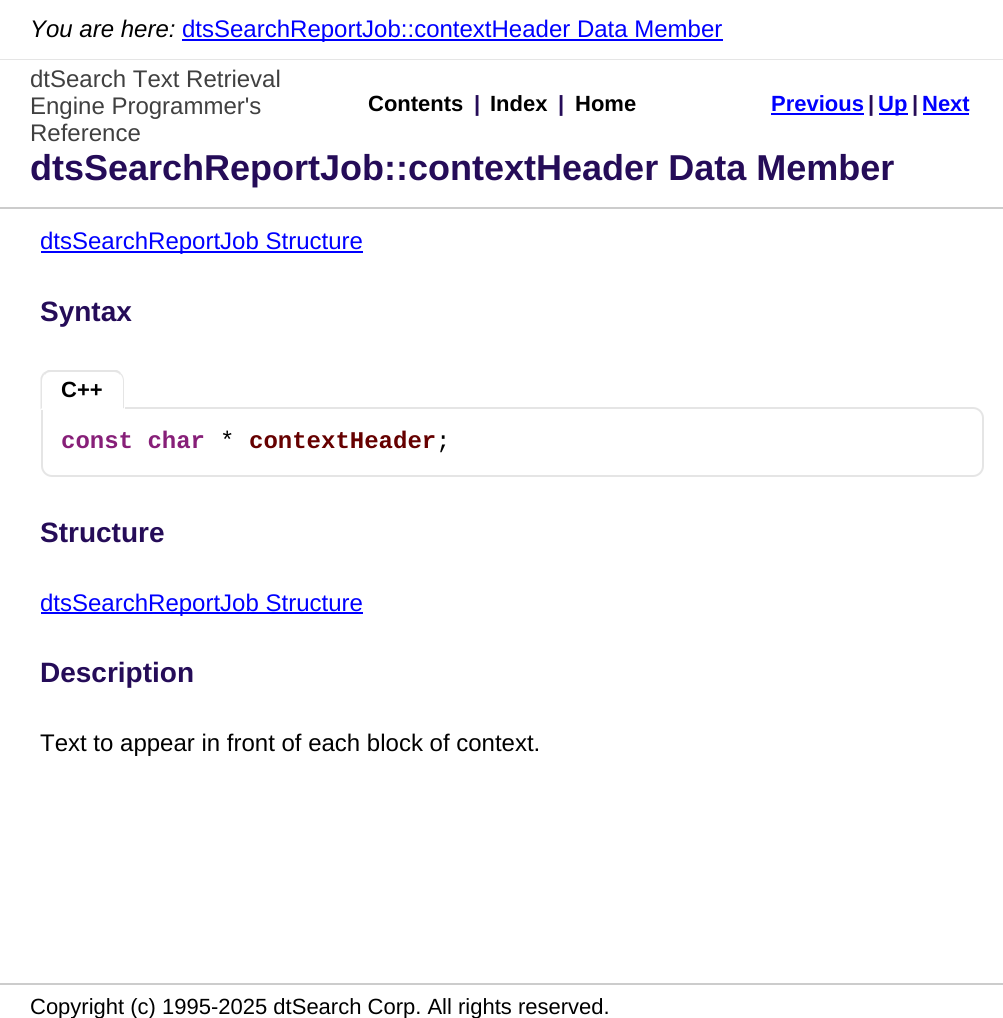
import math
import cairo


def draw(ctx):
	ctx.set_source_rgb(1, 1, 1)
	ctx.paint()
	ctx.set_source_rgb(0.898, 0.898, 0.898)
	ctx.rectangle(0, 59, 1003, 1)
	ctx.fill()
	ctx.select_font_face('Liberation Sans', cairo.FONT_SLANT_ITALIC)
	ctx.set_font_size(24)
	ctx.set_source_rgb(0, 0, 0)
	ctx.move_to(30, 37)
	ctx.show_text('You are here:')
	ctx.set_source_rgb(0, 0, 1)
	ctx.rectangle(182, 39, 541, 2)
	ctx.fill()
	ctx.select_font_face('Liberation Sans')
	ctx.move_to(182, 37)
	ctx.show_text('dtsSearchReportJob::contextHeader Data Member')
	ctx.set_source_rgb(0.8, 0.8, 0.8)
	ctx.rectangle(0, 207, 1003, 2)
	ctx.fill()
	ctx.set_source_rgb(0.251, 0.251, 0.251)
	for x, y, s in [
		(30, 87, 'dtSearch Text Retrieval'),
		(30, 114, 'Engine Programmer\'s'),
		(30, 141, 'Reference'),
	]:
		ctx.move_to(x, y)
		ctx.show_text(s)
	ctx.select_font_face('Liberation Sans', cairo.FONT_SLANT_NORMAL, cairo.FONT_WEIGHT_BOLD)
	ctx.set_font_size(22)
	ctx.set_source_rgb(0, 0, 0)
	ctx.move_to(368, 111)
	ctx.show_text('Contents')
	ctx.set_source_rgb(0.145, 0.047, 0.345)
	ctx.move_to(474, 111)
	ctx.show_text('|')
	ctx.set_source_rgb(0, 0, 0)
	ctx.move_to(490, 111)
	ctx.show_text('Index')
	ctx.set_source_rgb(0.145, 0.047, 0.345)
	ctx.move_to(558, 111)
	ctx.show_text('|')
	ctx.set_source_rgb(0, 0, 0)
	ctx.move_to(575, 111)
	ctx.show_text('Home')
	ctx.set_source_rgb(0, 0, 1)
	ctx.move_to(771, 111)
	ctx.show_text('Previous')
	ctx.rectangle(771, 113, 93, 2)
	ctx.fill()
	ctx.set_source_rgb(0.145, 0.047, 0.345)
	ctx.move_to(868, 111)
	ctx.show_text('|')
	ctx.set_source_rgb(0, 0, 1)
	ctx.rectangle(879, 113, 29, 2)
	ctx.fill()
	ctx.move_to(878, 111)
	ctx.show_text('Up')
	ctx.set_source_rgb(0.145, 0.047, 0.345)
	ctx.move_to(912, 111)
	ctx.show_text('|')
	ctx.set_source_rgb(0, 0, 1)
	ctx.move_to(922, 111)
	ctx.show_text('Next')
	ctx.rectangle(923, 113, 46, 2)
	ctx.fill()
	ctx.set_font_size(36)
	ctx.set_source_rgb(0.145, 0.047, 0.345)
	ctx.move_to(30, 180)
	ctx.show_text('dtsSearchReportJob::contextHeader Data Member')
	ctx.set_source_rgb(0, 0, 1)
	ctx.rectangle(41, 251, 322, 2)
	ctx.fill()
	ctx.select_font_face('Liberation Sans')
	ctx.set_font_size(24)
	ctx.move_to(40, 249)
	ctx.show_text('dtsSearchReportJob Structure')
	ctx.select_font_face('Liberation Sans', cairo.FONT_SLANT_NORMAL, cairo.FONT_WEIGHT_BOLD)
	ctx.set_font_size(28)
	ctx.set_source_rgb(0.145, 0.047, 0.345)
	ctx.move_to(40, 321)
	ctx.show_text('Syntax')
	ctx.new_path()
	ctx.move_to(42, 408)
	ctx.line_to(973, 408)
	ctx.curve_to(978.5, 408, 983, 412.5, 983, 418)
	ctx.line_to(983, 466)
	ctx.curve_to(983, 471.5, 978.5, 476, 973, 476)
	ctx.line_to(52, 476)
	ctx.curve_to(46.5, 476, 42, 471.5, 42, 466)
	ctx.close_path()
	ctx.set_source_rgb(0.898, 0.898, 0.898)
	ctx.stroke()
	ctx.set_source_rgb(1, 1, 1)
	ctx.new_path()
	ctx.move_to(52, 371)
	ctx.line_to(114, 371)
	ctx.curve_to(120, 371, 125, 376, 125, 382)
	ctx.line_to(125, 410)
	ctx.line_to(41, 410)
	ctx.line_to(41, 382)
	ctx.curve_to(41, 376, 46, 371, 52, 371)
	ctx.close_path()
	ctx.fill()
	ctx.set_source_rgb(0.898, 0.898, 0.898)
	ctx.new_path()
	ctx.move_to(51, 372)
	ctx.curve_to(48, 372, 46, 373, 45, 375)
	ctx.line_to(43, 373)
	ctx.line_to(48, 370)
	ctx.line_to(117, 370)
	ctx.curve_to(119, 371, 121, 372, 121, 374)
	ctx.line_to(120, 375)
	ctx.curve_to(119, 373, 116, 372, 114, 372)
	ctx.close_path()
	ctx.fill()
	ctx.new_path()
	ctx.move_to(121.5, 373.5)
	ctx.curve_to(123, 375.5, 124, 378, 124, 381)
	ctx.line_to(124, 409)
	ctx.line_to(123, 408)
	ctx.line_to(123, 381)
	ctx.curve_to(123, 378.5, 122, 376, 120.5, 374.5)
	ctx.close_path()
	ctx.fill()
	ctx.set_source_rgb(1, 1, 1)
	ctx.new_path()
	ctx.move_to(124, 409)
	ctx.line_to(124, 410)
	ctx.line_to(40, 410)
	ctx.line_to(42, 408)
	ctx.line_to(123, 408)
	ctx.close_path()
	ctx.fill()
	ctx.set_source_rgb(0.898, 0.898, 0.898)
	ctx.new_path()
	ctx.move_to(40.5, 409.5)
	ctx.line_to(40.5, 378)
	ctx.curve_to(41, 376, 42, 374.5, 43, 373)
	ctx.line_to(44.5, 374.5)
	ctx.curve_to(43, 376, 42, 378.5, 42, 381)
	ctx.line_to(42, 408)
	ctx.close_path()
	ctx.fill()
	ctx.set_font_size(22)
	ctx.set_source_rgb(0, 0, 0)
	ctx.move_to(61, 397)
	ctx.show_text('C++')
	ctx.select_font_face('Liberation Mono', cairo.FONT_SLANT_NORMAL, cairo.FONT_WEIGHT_BOLD)
	ctx.set_font_size(24)
	ctx.set_source_rgb(0.529, 0.122, 0.471)
	ctx.move_to(61, 448)
	ctx.show_text('const char')
	ctx.select_font_face('Liberation Mono')
	ctx.set_source_rgb(0, 0, 0)
	ctx.move_to(220, 448)
	ctx.show_text('*')
	ctx.select_font_face('Liberation Mono', cairo.FONT_SLANT_NORMAL, cairo.FONT_WEIGHT_BOLD)
	ctx.set_source_rgb(0.4, 0, 0)
	ctx.move_to(249, 448)
	ctx.show_text('contextHeader')
	ctx.select_font_face('Liberation Mono')
	ctx.set_source_rgb(0, 0, 0)
	ctx.move_to(436, 448)
	ctx.show_text(';')
	ctx.select_font_face('Liberation Sans', cairo.FONT_SLANT_NORMAL, cairo.FONT_WEIGHT_BOLD)
	ctx.set_font_size(28)
	ctx.set_source_rgb(0.145, 0.047, 0.345)
	ctx.move_to(40, 542)
	ctx.show_text('Structure')
	ctx.set_source_rgb(0, 0, 1)
	ctx.rectangle(41, 612, 322, 2)
	ctx.fill()
	ctx.select_font_face('Liberation Sans')
	ctx.set_font_size(24)
	ctx.move_to(40, 611)
	ctx.show_text('dtsSearchReportJob Structure')
	ctx.select_font_face('Liberation Sans', cairo.FONT_SLANT_NORMAL, cairo.FONT_WEIGHT_BOLD)
	ctx.set_font_size(28)
	ctx.set_source_rgb(0.145, 0.047, 0.345)
	ctx.move_to(40, 682)
	ctx.show_text('Description')
	ctx.select_font_face('Liberation Sans')
	ctx.set_font_size(24)
	ctx.set_source_rgb(0, 0, 0)
	ctx.move_to(40, 751)
	ctx.show_text('Text to appear in front of each block of context.')
	ctx.set_source_rgb(0.8, 0.8, 0.8)
	ctx.rectangle(0, 983, 1003, 2)
	ctx.fill()
	ctx.set_font_size(22)
	ctx.set_source_rgb(0, 0, 0)
	ctx.move_to(30, 1014)
	ctx.show_text('Copyright (c) 1995-2025 dtSearch Corp. All rights reserved.')


surface = cairo.ImageSurface(cairo.FORMAT_RGB24, 1003, 1018)
ctx = cairo.Context(surface)
options = cairo.FontOptions()
options.set_hint_metrics(cairo.HINT_METRICS_OFF)
options.set_hint_style(cairo.HINT_STYLE_NONE)
ctx.set_font_options(options)
ctx.set_miter_limit(4)
draw(ctx)
surface.write_to_png('image.png')
